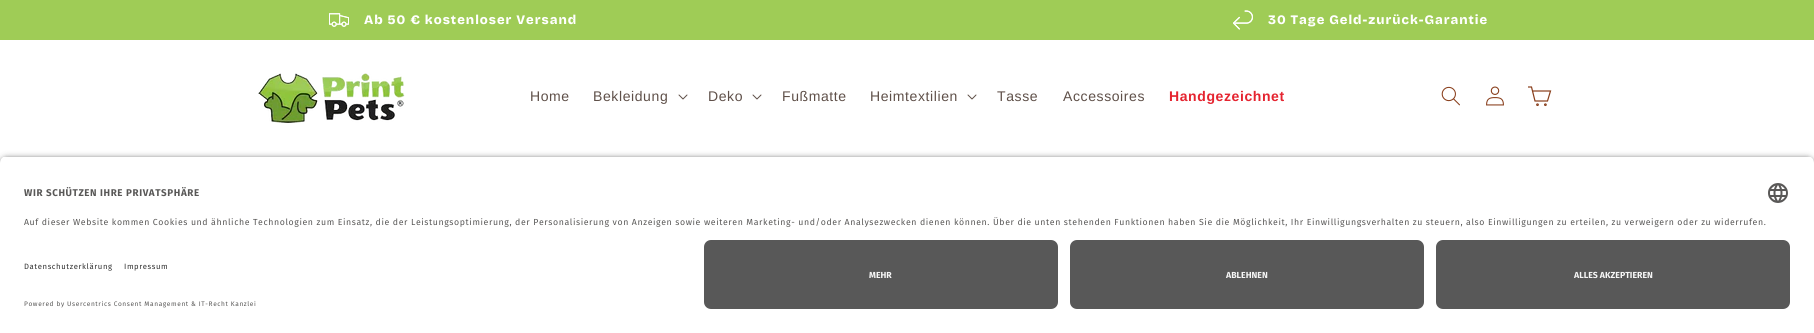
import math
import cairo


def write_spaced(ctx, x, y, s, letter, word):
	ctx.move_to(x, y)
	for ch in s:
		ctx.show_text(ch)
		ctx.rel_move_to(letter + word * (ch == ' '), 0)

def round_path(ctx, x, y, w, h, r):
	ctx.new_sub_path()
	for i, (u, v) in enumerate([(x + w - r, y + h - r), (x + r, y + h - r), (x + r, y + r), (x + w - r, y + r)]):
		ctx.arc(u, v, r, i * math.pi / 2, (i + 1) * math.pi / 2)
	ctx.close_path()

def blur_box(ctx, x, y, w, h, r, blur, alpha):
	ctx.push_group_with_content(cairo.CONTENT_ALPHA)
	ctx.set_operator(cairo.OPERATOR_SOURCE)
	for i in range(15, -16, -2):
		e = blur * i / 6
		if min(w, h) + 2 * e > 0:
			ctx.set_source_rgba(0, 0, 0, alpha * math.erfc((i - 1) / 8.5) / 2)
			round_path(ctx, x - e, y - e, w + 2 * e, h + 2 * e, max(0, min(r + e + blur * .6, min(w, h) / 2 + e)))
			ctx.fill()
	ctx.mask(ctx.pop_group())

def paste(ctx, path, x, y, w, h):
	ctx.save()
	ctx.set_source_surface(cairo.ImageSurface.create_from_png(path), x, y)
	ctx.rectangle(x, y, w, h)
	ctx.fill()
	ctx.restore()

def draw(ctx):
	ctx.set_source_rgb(1, 1, 1)
	ctx.paint()
	ctx.set_source_rgb(0.624, 0.8, 0.337)
	ctx.rectangle(0, 0, 1814, 40)
	ctx.fill()
	paste(ctx, 'media/3.png', 329, 13, 20, 14)
	paste(ctx, 'media/1.png', 329, 13, 20, 14)
	paste(ctx, 'media/4.png', 1233, 10, 20, 20)
	paste(ctx, 'media/2.png', 1233, 10, 20, 20)
	ctx.select_font_face('Bricolage Grotesque ExtraBold')
	ctx.set_font_size(13)
	ctx.set_source_rgb(1, 1, 1)
	write_spaced(ctx, 364, 24, 'Ab 50 € kostenloser Versand', 1, 0)
	write_spaced(ctx, 1268, 24, '30 Tage Geld-zurück-Garantie', 1, 0)
	paste(ctx, 'media/5.png', 258, 73, 147, 50)
	ctx.select_font_face('Arimo')
	ctx.set_font_size(14)
	ctx.set_source_rgb(0.373, 0.314, 0.286)
	write_spaced(ctx, 530, 101, 'Home', 0.6, 0)
	write_spaced(ctx, 593, 101, 'Bekleidung', 0.6, 0)
	paste(ctx, 'media/6.png', 678, 94, 10, 6)
	write_spaced(ctx, 708, 101, 'Deko', 0.6, 0)
	paste(ctx, 'media/6.png', 752, 94, 10, 6)
	write_spaced(ctx, 782, 101, 'Fußmatte', 0.6, 0)
	write_spaced(ctx, 870, 101, 'Heimtextilien', 0.6, 0)
	paste(ctx, 'media/6.png', 967, 94, 10, 6)
	write_spaced(ctx, 997, 101, 'Tasse', 0.6, 0)
	write_spaced(ctx, 1063, 101, 'Accessoires', 0.6, 0)
	ctx.select_font_face('Arimo', cairo.FONT_SLANT_NORMAL, cairo.FONT_WEIGHT_BOLD)
	ctx.set_source_rgb(0.898, 0.141, 0.188)
	write_spaced(ctx, 1169, 101, 'Handgezeichnet', 0.6, 0)
	paste(ctx, 'media/7.png', 1441, 86, 19, 20)
	paste(ctx, 'media/8.png', 1486, 86, 18, 20)
	ctx.new_path()
	ctx.move_to(1532.5, 91)
	ctx.line_to(1550.5, 91)
	ctx.line_to(1547.5, 101)
	ctx.line_to(1535, 101)
	ctx.line_to(1531.5, 87)
	ctx.line_to(1528, 87)
	ctx.set_source_rgb(0.533, 0.239, 0.102)
	ctx.set_line_width(1.2)
	ctx.stroke()
	ctx.arc(1537.5, 104.7, 0.8, 0, 2 * math.pi)
	ctx.stroke()
	ctx.arc(1545.4, 104.7, 0.8, 0, 2 * math.pi)
	ctx.stroke()
	ctx.set_source_rgb(0, 0, 0)
	blur_box(ctx, 0, 159, 1814, 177, 7, 3.5, 0.8)
	ctx.save()
	ctx.new_path()
	ctx.move_to(7, 156)
	ctx.line_to(1807, 156)
	ctx.curve_to(1811, 156, 1814, 159, 1814, 163)
	ctx.line_to(1814, 232)
	ctx.line_to(0, 232)
	ctx.line_to(0, 163)
	ctx.curve_to(0, 159, 3, 156, 7, 156)
	ctx.close_path()
	ctx.clip()
	ctx.set_source_rgb(1, 1, 1)
	ctx.rectangle(0, 157, 1814, 75)
	ctx.fill()
	ctx.restore()
	ctx.select_font_face('Fira Sans', cairo.FONT_SLANT_NORMAL, cairo.FONT_WEIGHT_BOLD)
	ctx.set_font_size(9.8)
	ctx.set_source_rgb(0.349, 0.345, 0.341)
	write_spaced(ctx, 24, 196, 'WIR SCHÜTZEN IHRE PRIVATSPHÄRE', 0.6, 0)
	paste(ctx, 'media/9.png', 1768, 183, 20, 20)
	ctx.select_font_face('Fira Sans')
	ctx.set_font_size(8.75)
	write_spaced(ctx, 24, 225, 'Auf dieser Website kommen Cookies und ähnliche Technologien zum Einsatz, die der Leistungsoptimierung, der Personalisierung von Anzeigen sowie weiteren Marketing- und/oder Analysezwecken dienen können. Über die unten stehenden Funktionen haben Sie die Möglichkeit, Ihr Einwilligungsverhalten zu steuern, also Einwilligungen zu erteilen, zu verweigern oder zu widerrufen.', 0.6, 0)
	ctx.set_source_rgb(1, 1, 1)
	ctx.rectangle(0, 232, 1814, 101)
	ctx.fill()
	ctx.set_font_size(7.7)
	ctx.set_source_rgb(0.188, 0.188, 0.188)
	write_spaced(ctx, 24, 269, 'Datenschutzerklärung', 0.6, 0)
	write_spaced(ctx, 124, 269, 'Impressum', 0.6, 0)
	ctx.set_font_size(6.55)
	ctx.set_source_rgb(0.349, 0.345, 0.341)
	write_spaced(ctx, 24, 306, 'Powered by Usercentrics Consent Management & IT-Recht Kanzlei', 0.6, 0)
	ctx.set_source_rgb(0.345, 0.345, 0.345)
	round_path(ctx, 704, 240, 354, 69, 7)
	ctx.fill()
	ctx.select_font_face('Fira Sans', cairo.FONT_SLANT_NORMAL, cairo.FONT_WEIGHT_BOLD)
	ctx.set_font_size(8.75)
	ctx.set_source_rgb(0.961, 0.961, 0.961)
	ctx.move_to(869, 278)
	ctx.show_text('MEHR')
	ctx.set_source_rgb(0.345, 0.345, 0.345)
	round_path(ctx, 1070, 240, 354, 69, 7)
	ctx.fill()
	ctx.set_source_rgb(0.961, 0.961, 0.961)
	ctx.move_to(1226, 278)
	ctx.show_text('ABLEHNEN')
	ctx.set_source_rgb(0.345, 0.345, 0.345)
	round_path(ctx, 1436, 240, 354, 69, 7)
	ctx.fill()
	ctx.set_source_rgb(0.961, 0.961, 0.961)
	ctx.move_to(1574, 278)
	ctx.show_text('ALLES AKZEPTIEREN')


surface = cairo.ImageSurface(cairo.FORMAT_RGB24, 1814, 333)
ctx = cairo.Context(surface)
options = cairo.FontOptions()
options.set_hint_metrics(cairo.HINT_METRICS_OFF)
options.set_hint_style(cairo.HINT_STYLE_NONE)
ctx.set_font_options(options)
ctx.set_miter_limit(4)
draw(ctx)
surface.write_to_png('image.png')
